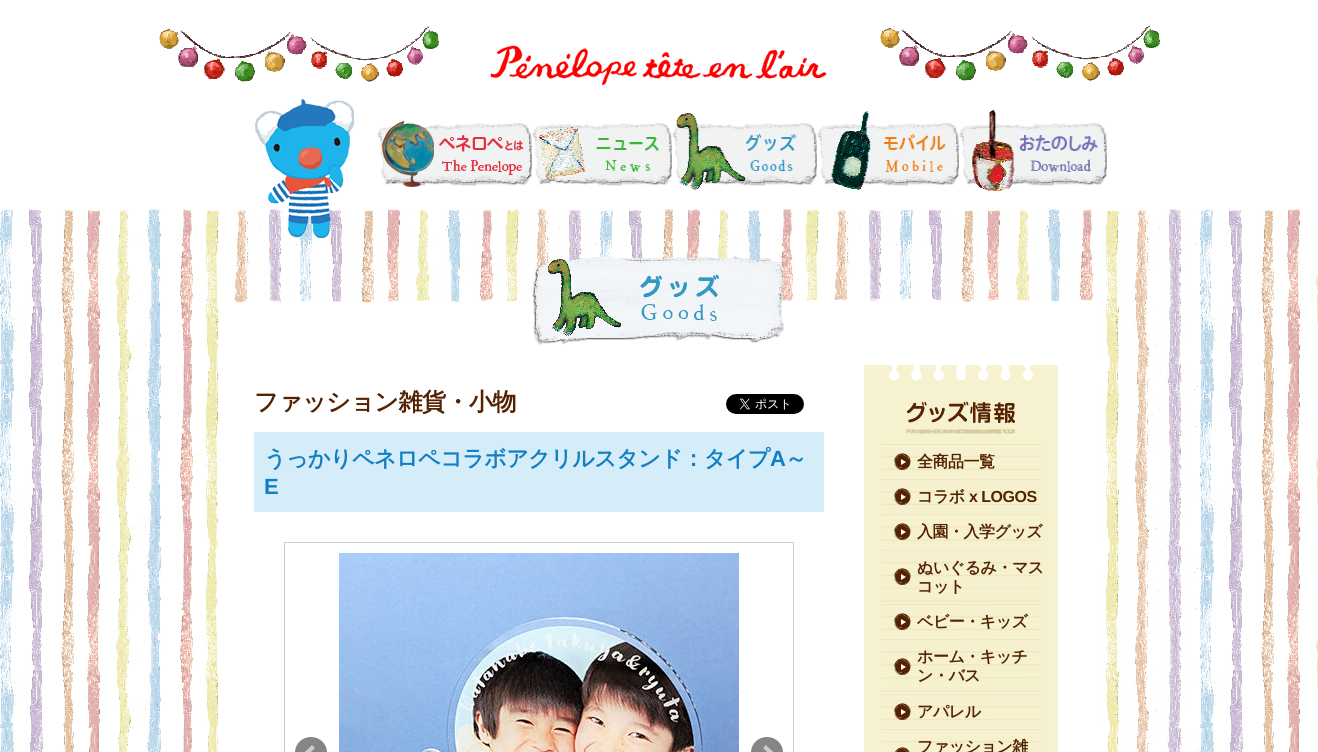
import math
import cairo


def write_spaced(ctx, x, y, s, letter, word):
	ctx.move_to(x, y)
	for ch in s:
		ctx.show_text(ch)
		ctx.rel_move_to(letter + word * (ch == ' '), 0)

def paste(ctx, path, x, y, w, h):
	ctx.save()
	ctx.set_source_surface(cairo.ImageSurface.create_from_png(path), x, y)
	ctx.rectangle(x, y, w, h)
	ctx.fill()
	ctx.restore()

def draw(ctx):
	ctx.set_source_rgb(1, 1, 1)
	ctx.paint()
	paste(ctx, 'media/1.png', 0, 208, 1318, 544)
	paste(ctx, 'media/2.png', 0, 0, 1318, 213)
	paste(ctx, 'media/3.png', 159, 25, 1001, 57)
	paste(ctx, 'media/4.png', 490, 45, 337, 40)
	paste(ctx, 'media/5.png', 255, 99, 99, 139)
	paste(ctx, 'media/6.png', 377, 121, 155, 66)
	paste(ctx, 'media/7.png', 532, 123, 140, 63)
	paste(ctx, 'media/8.png', 672, 113, 145, 77)
	paste(ctx, 'media/9.png', 817, 111, 142, 79)
	paste(ctx, 'media/10.png', 959, 110, 148, 81)
	paste(ctx, 'media/12.png', 216, 298, 886, 66)
	paste(ctx, 'media/11.png', 532, 255, 252, 90)
	paste(ctx, 'media/13.png', 214, 364, 888, 388)
	ctx.select_font_face('WenQuanYi Zen Hei', cairo.FONT_SLANT_NORMAL, cairo.FONT_WEIGHT_BOLD)
	ctx.set_font_size(24)
	ctx.set_source_rgb(0.329, 0.133, 0)
	write_spaced(ctx, 254, 410, 'ファッション雑貨・小物', -0.5, 0)
	paste(ctx, 'media/14.png', 726, 394, 78, 20)
	ctx.set_source_rgb(0.835, 0.929, 0.969)
	ctx.rectangle(254, 432, 570, 80)
	ctx.fill()
	ctx.set_font_size(22)
	ctx.set_source_rgb(0.071, 0.494, 0.769)
	write_spaced(ctx, 264, 466, 'うっかりペネロペコラボアクリルスタンド：タイプ', -0.5, 0)
	ctx.select_font_face('Liberation Sans', cairo.FONT_SLANT_NORMAL, cairo.FONT_WEIGHT_BOLD)
	write_spaced(ctx, 770, 466, 'A', -0.5, 0)
	ctx.select_font_face('WenQuanYi Zen Hei', cairo.FONT_SLANT_NORMAL, cairo.FONT_WEIGHT_BOLD)
	write_spaced(ctx, 785, 466, '～', -0.5, 0)
	ctx.select_font_face('Liberation Sans', cairo.FONT_SLANT_NORMAL, cairo.FONT_WEIGHT_BOLD)
	write_spaced(ctx, 264, 494, 'E', -0.5, 0)
	ctx.rectangle(284.5, 542.5, 509, 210)
	ctx.set_source_rgb(0.8, 0.8, 0.8)
	ctx.set_line_width(1)
	ctx.stroke()
	paste(ctx, 'media/15.png', 339, 553, 400, 199)
	paste(ctx, 'media/16.png', 295, 737, 32, 15)
	paste(ctx, 'media/17.png', 751, 737, 32, 15)
	paste(ctx, 'media/18.png', 864, 365, 194, 79)
	paste(ctx, 'media/19.png', 864, 444, 194, 35)
	paste(ctx, 'media/20.png', 894, 453, 17, 17)
	ctx.select_font_face('WenQuanYi Zen Hei', cairo.FONT_SLANT_NORMAL, cairo.FONT_WEIGHT_BOLD)
	ctx.set_font_size(16)
	ctx.set_source_rgb(0.329, 0.133, 0)
	write_spaced(ctx, 917, 467, '全商品一覧', -0.5, 0)
	paste(ctx, 'media/19.png', 864, 479, 194, 35)
	paste(ctx, 'media/20.png', 894, 488, 17, 17)
	write_spaced(ctx, 917, 502, 'コラボ', -0.5, 0)
	ctx.select_font_face('Liberation Sans', cairo.FONT_SLANT_NORMAL, cairo.FONT_WEIGHT_BOLD)
	write_spaced(ctx, 969, 502, 'x LOGOS', -0.5, 0)
	paste(ctx, 'media/21.png', 864, 514, 194, 36)
	paste(ctx, 'media/22.png', 894, 523, 17, 17)
	ctx.select_font_face('WenQuanYi Zen Hei', cairo.FONT_SLANT_NORMAL, cairo.FONT_WEIGHT_BOLD)
	write_spaced(ctx, 917, 537, '入園・入学グッズ', -0.5, 0)
	paste(ctx, 'media/23.png', 864, 550, 194, 54)
	paste(ctx, 'media/24.png', 894, 568, 17, 17)
	write_spaced(ctx, 917, 573, 'ぬいぐるみ・マス', -0.5, 0)
	write_spaced(ctx, 917, 592, 'コット', -0.5, 0)
	paste(ctx, 'media/19.png', 864, 604, 194, 35)
	paste(ctx, 'media/20.png', 894, 613, 17, 17)
	write_spaced(ctx, 917, 627, 'ベビー・キッズ', -0.5, 0)
	paste(ctx, 'media/25.png', 864, 639, 194, 55)
	paste(ctx, 'media/26.png', 894, 658, 17, 17)
	write_spaced(ctx, 917, 662, 'ホーム・キッチ', -0.5, 0)
	write_spaced(ctx, 917, 681, 'ン・バス', -0.5, 0)
	paste(ctx, 'media/19.png', 864, 694, 194, 35)
	paste(ctx, 'media/20.png', 894, 703, 17, 17)
	write_spaced(ctx, 917, 717, 'アパレル', -0.5, 0)
	paste(ctx, 'media/27.png', 864, 729, 194, 23)
	paste(ctx, 'media/28.png', 895, 747, 15, 5)
	write_spaced(ctx, 917, 752, 'ファッション雑', -0.5, 0)


surface = cairo.ImageSurface(cairo.FORMAT_RGB24, 1318, 752)
ctx = cairo.Context(surface)
options = cairo.FontOptions()
options.set_hint_metrics(cairo.HINT_METRICS_OFF)
options.set_hint_style(cairo.HINT_STYLE_NONE)
ctx.set_font_options(options)
ctx.set_miter_limit(4)
draw(ctx)
surface.write_to_png('image.png')
